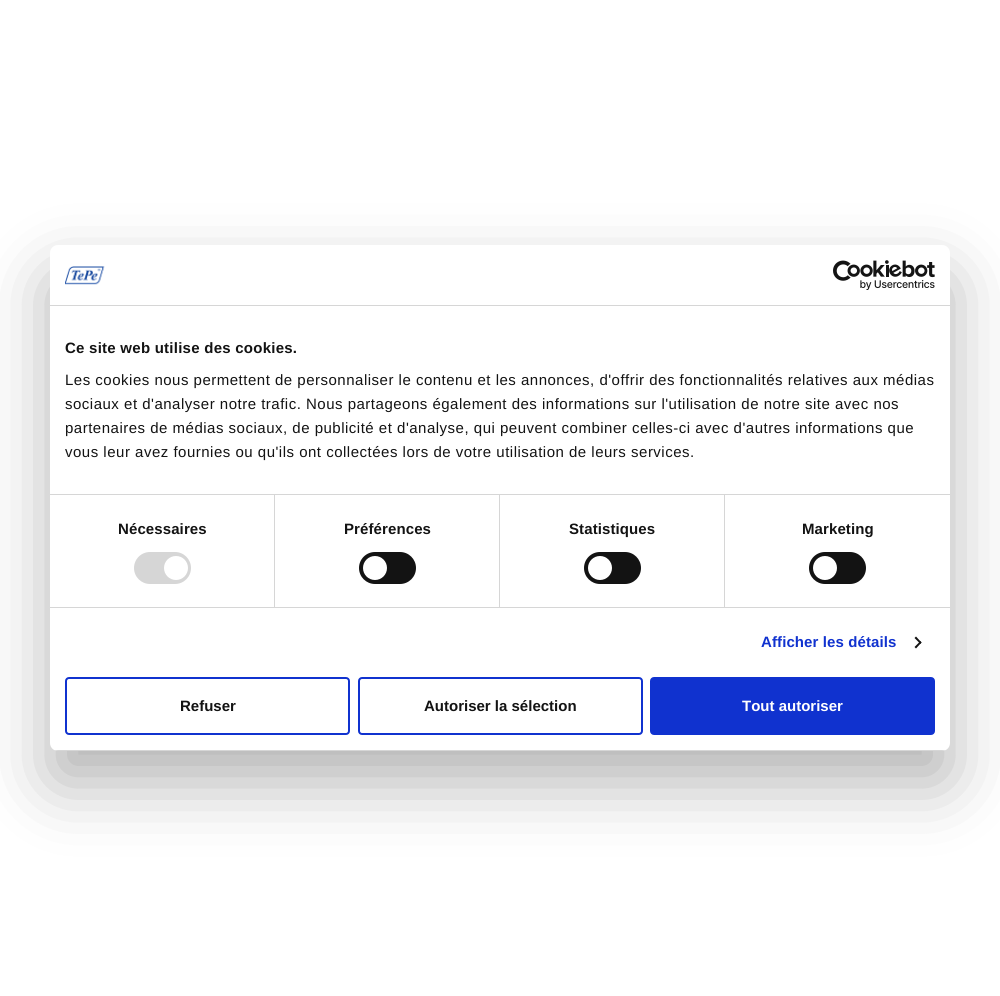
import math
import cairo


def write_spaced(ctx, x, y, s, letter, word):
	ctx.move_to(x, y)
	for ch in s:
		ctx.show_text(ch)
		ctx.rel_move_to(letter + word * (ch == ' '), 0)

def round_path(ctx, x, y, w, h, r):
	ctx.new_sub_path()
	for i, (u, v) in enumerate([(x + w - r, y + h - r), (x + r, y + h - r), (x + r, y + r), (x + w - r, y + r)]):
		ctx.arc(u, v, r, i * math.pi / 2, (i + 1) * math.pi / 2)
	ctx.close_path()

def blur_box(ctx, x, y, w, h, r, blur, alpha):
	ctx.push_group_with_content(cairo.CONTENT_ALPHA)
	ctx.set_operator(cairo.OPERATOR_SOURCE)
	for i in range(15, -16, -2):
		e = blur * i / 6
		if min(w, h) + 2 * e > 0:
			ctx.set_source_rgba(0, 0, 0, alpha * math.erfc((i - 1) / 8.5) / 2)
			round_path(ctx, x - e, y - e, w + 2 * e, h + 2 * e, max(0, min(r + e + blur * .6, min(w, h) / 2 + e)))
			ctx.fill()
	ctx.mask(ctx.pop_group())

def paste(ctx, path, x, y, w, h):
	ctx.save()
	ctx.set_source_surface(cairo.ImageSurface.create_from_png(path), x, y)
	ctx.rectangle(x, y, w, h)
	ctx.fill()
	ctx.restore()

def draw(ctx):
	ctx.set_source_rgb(1, 1, 1)
	ctx.paint()
	ctx.set_source_rgb(0, 0, 0)
	blur_box(ctx, 50, 277, 900, 506, 8, 34, 0.3)
	ctx.set_source_rgb(1, 1, 1)
	round_path(ctx, 50, 245, 900, 506, 8)
	ctx.fill()
	ctx.set_source_rgb(0.839, 0.839, 0.839)
	ctx.rectangle(50, 305, 900, 1)
	ctx.fill()
	paste(ctx, 'media/1.png', 65, 266, 40, 19)
	paste(ctx, 'media/2.png', 833, 260, 102, 30)
	ctx.rectangle(50, 494, 900, 1)
	ctx.fill()
	ctx.select_font_face('Liberation Sans', cairo.FONT_SLANT_NORMAL, cairo.FONT_WEIGHT_BOLD)
	ctx.set_font_size(15)
	ctx.set_source_rgb(0.078, 0.078, 0.078)
	write_spaced(ctx, 65, 353, 'Ce site web utilise des cookies.', 0.25, 0)
	ctx.select_font_face('Liberation Sans')
	for x, y, s in [
		(65, 385, 'Les cookies nous permettent de personnaliser le contenu et les annonces, d\'offrir des fonctionnalités relatives aux médias'),
		(65, 409, 'sociaux et d\'analyser notre trafic. Nous partageons également des informations sur l\'utilisation de notre site avec nos'),
		(65, 433, 'partenaires de médias sociaux, de publicité et d\'analyse, qui peuvent combiner celles-ci avec d\'autres informations que'),
		(65, 457, 'vous leur avez fournies ou qu\'ils ont collectées lors de votre utilisation de leurs services.'),
	]:
		write_spaced(ctx, x, y, s, 0.5, 0)
	ctx.set_source_rgb(0.839, 0.839, 0.839)
	ctx.rectangle(50, 607, 900, 1)
	ctx.fill()
	ctx.rectangle(274, 495, 1, 112)
	ctx.fill()
	ctx.select_font_face('Liberation Sans', cairo.FONT_SLANT_NORMAL, cairo.FONT_WEIGHT_BOLD)
	ctx.set_source_rgb(0.078, 0.078, 0.078)
	write_spaced(ctx, 118, 534, 'Nécessaires', 0.1, 0)
	ctx.set_source_rgb(0.839, 0.839, 0.839)
	round_path(ctx, 134, 552, 57, 32, 16)
	ctx.fill()
	ctx.set_source_rgb(1, 1, 1)
	ctx.arc(176, 568, 12, 0, 2 * math.pi)
	ctx.fill()
	ctx.set_source_rgb(0.839, 0.839, 0.839)
	ctx.rectangle(499, 495, 1, 112)
	ctx.fill()
	ctx.set_source_rgb(0.078, 0.078, 0.078)
	write_spaced(ctx, 344, 534, 'Préférences', 0.1, 0)
	round_path(ctx, 359, 552, 57, 32, 16)
	ctx.fill()
	ctx.set_source_rgb(1, 1, 1)
	ctx.arc(375, 568, 12, 0, 2 * math.pi)
	ctx.fill()
	ctx.set_source_rgb(0.839, 0.839, 0.839)
	ctx.rectangle(724, 495, 1, 112)
	ctx.fill()
	ctx.set_source_rgb(0.078, 0.078, 0.078)
	write_spaced(ctx, 569, 534, 'Statistiques', 0.1, 0)
	round_path(ctx, 584, 552, 57, 32, 16)
	ctx.fill()
	ctx.set_source_rgb(1, 1, 1)
	ctx.arc(600, 568, 12, 0, 2 * math.pi)
	ctx.fill()
	ctx.set_source_rgb(0.078, 0.078, 0.078)
	write_spaced(ctx, 802, 534, 'Marketing', 0.1, 0)
	round_path(ctx, 809, 552, 57, 32, 16)
	ctx.fill()
	ctx.set_source_rgb(1, 1, 1)
	ctx.arc(825, 568, 12, 0, 2 * math.pi)
	ctx.fill()
	ctx.set_source_rgb(0.063, 0.196, 0.812)
	write_spaced(ctx, 761, 647, 'Afficher les détails', 0.1, 0)
	ctx.set_source_rgb(0.078, 0.078, 0.078)
	ctx.new_path()
	ctx.move_to(916, 636.5)
	ctx.line_to(921.5, 642.5)
	ctx.line_to(920.5, 644)
	ctx.line_to(914.5, 638)
	ctx.close_path()
	ctx.fill()
	ctx.new_path()
	ctx.move_to(920.5, 641)
	ctx.line_to(921.5, 642.5)
	ctx.line_to(916, 648.5)
	ctx.line_to(914.5, 647)
	ctx.close_path()
	ctx.fill()
	ctx.save()
	round_path(ctx, 50, 245, 900, 506, 8)
	ctx.clip()
	ctx.set_source_rgb(0.839, 0.839, 0.839)
	ctx.rectangle(50, 750, 900, 1)
	ctx.fill()
	ctx.restore()
	round_path(ctx, 66, 678, 283, 56, 3)
	ctx.set_source_rgb(0.063, 0.196, 0.812)
	ctx.stroke()
	ctx.set_source_rgb(0.078, 0.078, 0.078)
	ctx.move_to(180, 711)
	ctx.show_text('Refuser')
	round_path(ctx, 359, 678, 283, 56, 3)
	ctx.set_source_rgb(0.063, 0.196, 0.812)
	ctx.stroke()
	ctx.set_source_rgb(0.078, 0.078, 0.078)
	ctx.move_to(424, 711)
	ctx.show_text('Autoriser la sélection')
	ctx.set_source_rgb(0.063, 0.196, 0.812)
	round_path(ctx, 651, 678, 283, 56, 3)
	ctx.fill_preserve()
	ctx.stroke()
	ctx.set_source_rgb(1, 1, 1)
	ctx.move_to(742, 711)
	ctx.show_text('Tout autoriser')


surface = cairo.ImageSurface(cairo.FORMAT_RGB24, 1000, 996)
ctx = cairo.Context(surface)
options = cairo.FontOptions()
options.set_hint_metrics(cairo.HINT_METRICS_OFF)
options.set_hint_style(cairo.HINT_STYLE_NONE)
ctx.set_font_options(options)
ctx.set_miter_limit(4)
draw(ctx)
surface.write_to_png('image.png')
